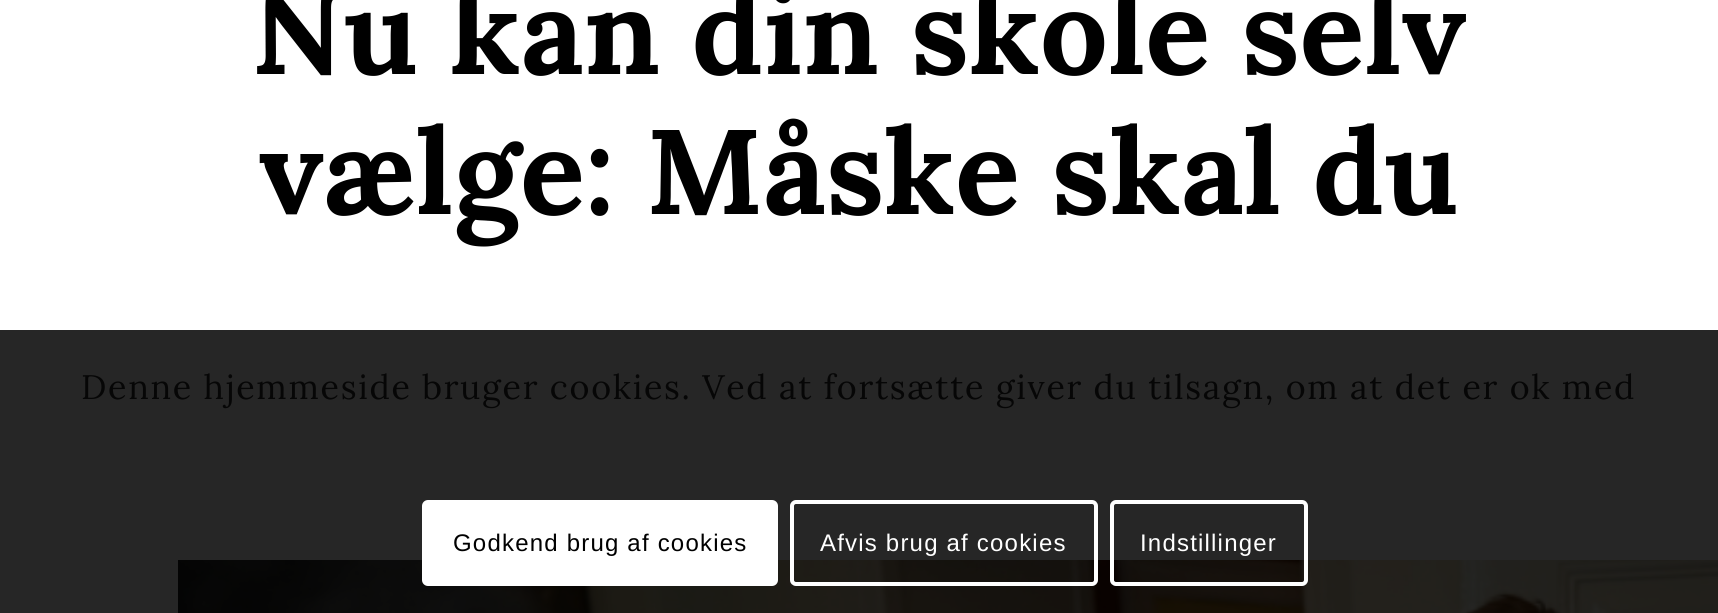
import math
import cairo


def write_spaced(ctx, x, y, s, letter, word):
	ctx.move_to(x, y)
	for ch in s:
		ctx.show_text(ch)
		ctx.rel_move_to(letter + word * (ch == ' '), 0)

def round_path(ctx, x, y, w, h, r):
	ctx.new_sub_path()
	for i, (u, v) in enumerate([(x + w - r, y + h - r), (x + r, y + h - r), (x + r, y + r), (x + w - r, y + r)]):
		ctx.arc(u, v, r, i * math.pi / 2, (i + 1) * math.pi / 2)
	ctx.close_path()

def paste(ctx, path, x, y, w, h):
	ctx.save()
	ctx.set_source_surface(cairo.ImageSurface.create_from_png(path), x, y)
	ctx.rectangle(x, y, w, h)
	ctx.fill()
	ctx.restore()

def draw(ctx):
	ctx.set_source_rgb(1, 1, 1)
	ctx.paint()
	ctx.select_font_face('Lora', cairo.FONT_SLANT_NORMAL, cairo.FONT_WEIGHT_BOLD)
	ctx.set_font_size(120)
	ctx.set_source_rgb(0, 0, 0)
	ctx.move_to(251, 74)
	ctx.show_text('Nu kan din skole selv')
	ctx.move_to(259, 214)
	ctx.show_text('vælge: Måske skal du')
	paste(ctx, 'media/1.png', 178, 560, 1540, 53)
	ctx.set_source_rgba(0, 0, 0, 0.85)
	ctx.rectangle(0, 330, 1718, 283)
	ctx.fill()
	ctx.select_font_face('Lora')
	ctx.set_font_size(34)
	ctx.set_source_rgb(0.024, 0.024, 0.024)
	write_spaced(ctx, 81, 399, 'Denne hjemmeside bruger cookies. Ved at fortsætte giver du tilsagn, om at det er ok med', 1.7, 0)
	ctx.set_source_rgb(1, 1, 1)
	round_path(ctx, 422, 500, 356, 86, 6)
	ctx.fill()
	ctx.select_font_face('Liberation Sans')
	ctx.set_font_size(24)
	ctx.set_source_rgb(0, 0, 0)
	write_spaced(ctx, 453, 551, 'Godkend brug af cookies', 1.2, 0)
	round_path(ctx, 792, 502, 304, 82, 4)
	ctx.set_source_rgb(1, 1, 1)
	ctx.set_line_width(4)
	ctx.stroke()
	write_spaced(ctx, 820, 551, 'Afvis brug af cookies', 1.2, 0)
	round_path(ctx, 1112, 502, 194, 82, 4)
	ctx.stroke()
	write_spaced(ctx, 1140, 551, 'Indstillinger', 1.2, 0)


surface = cairo.ImageSurface(cairo.FORMAT_RGB24, 1718, 613)
ctx = cairo.Context(surface)
options = cairo.FontOptions()
options.set_hint_metrics(cairo.HINT_METRICS_OFF)
options.set_hint_style(cairo.HINT_STYLE_NONE)
ctx.set_font_options(options)
ctx.set_miter_limit(4)
draw(ctx)
surface.write_to_png('image.png')
